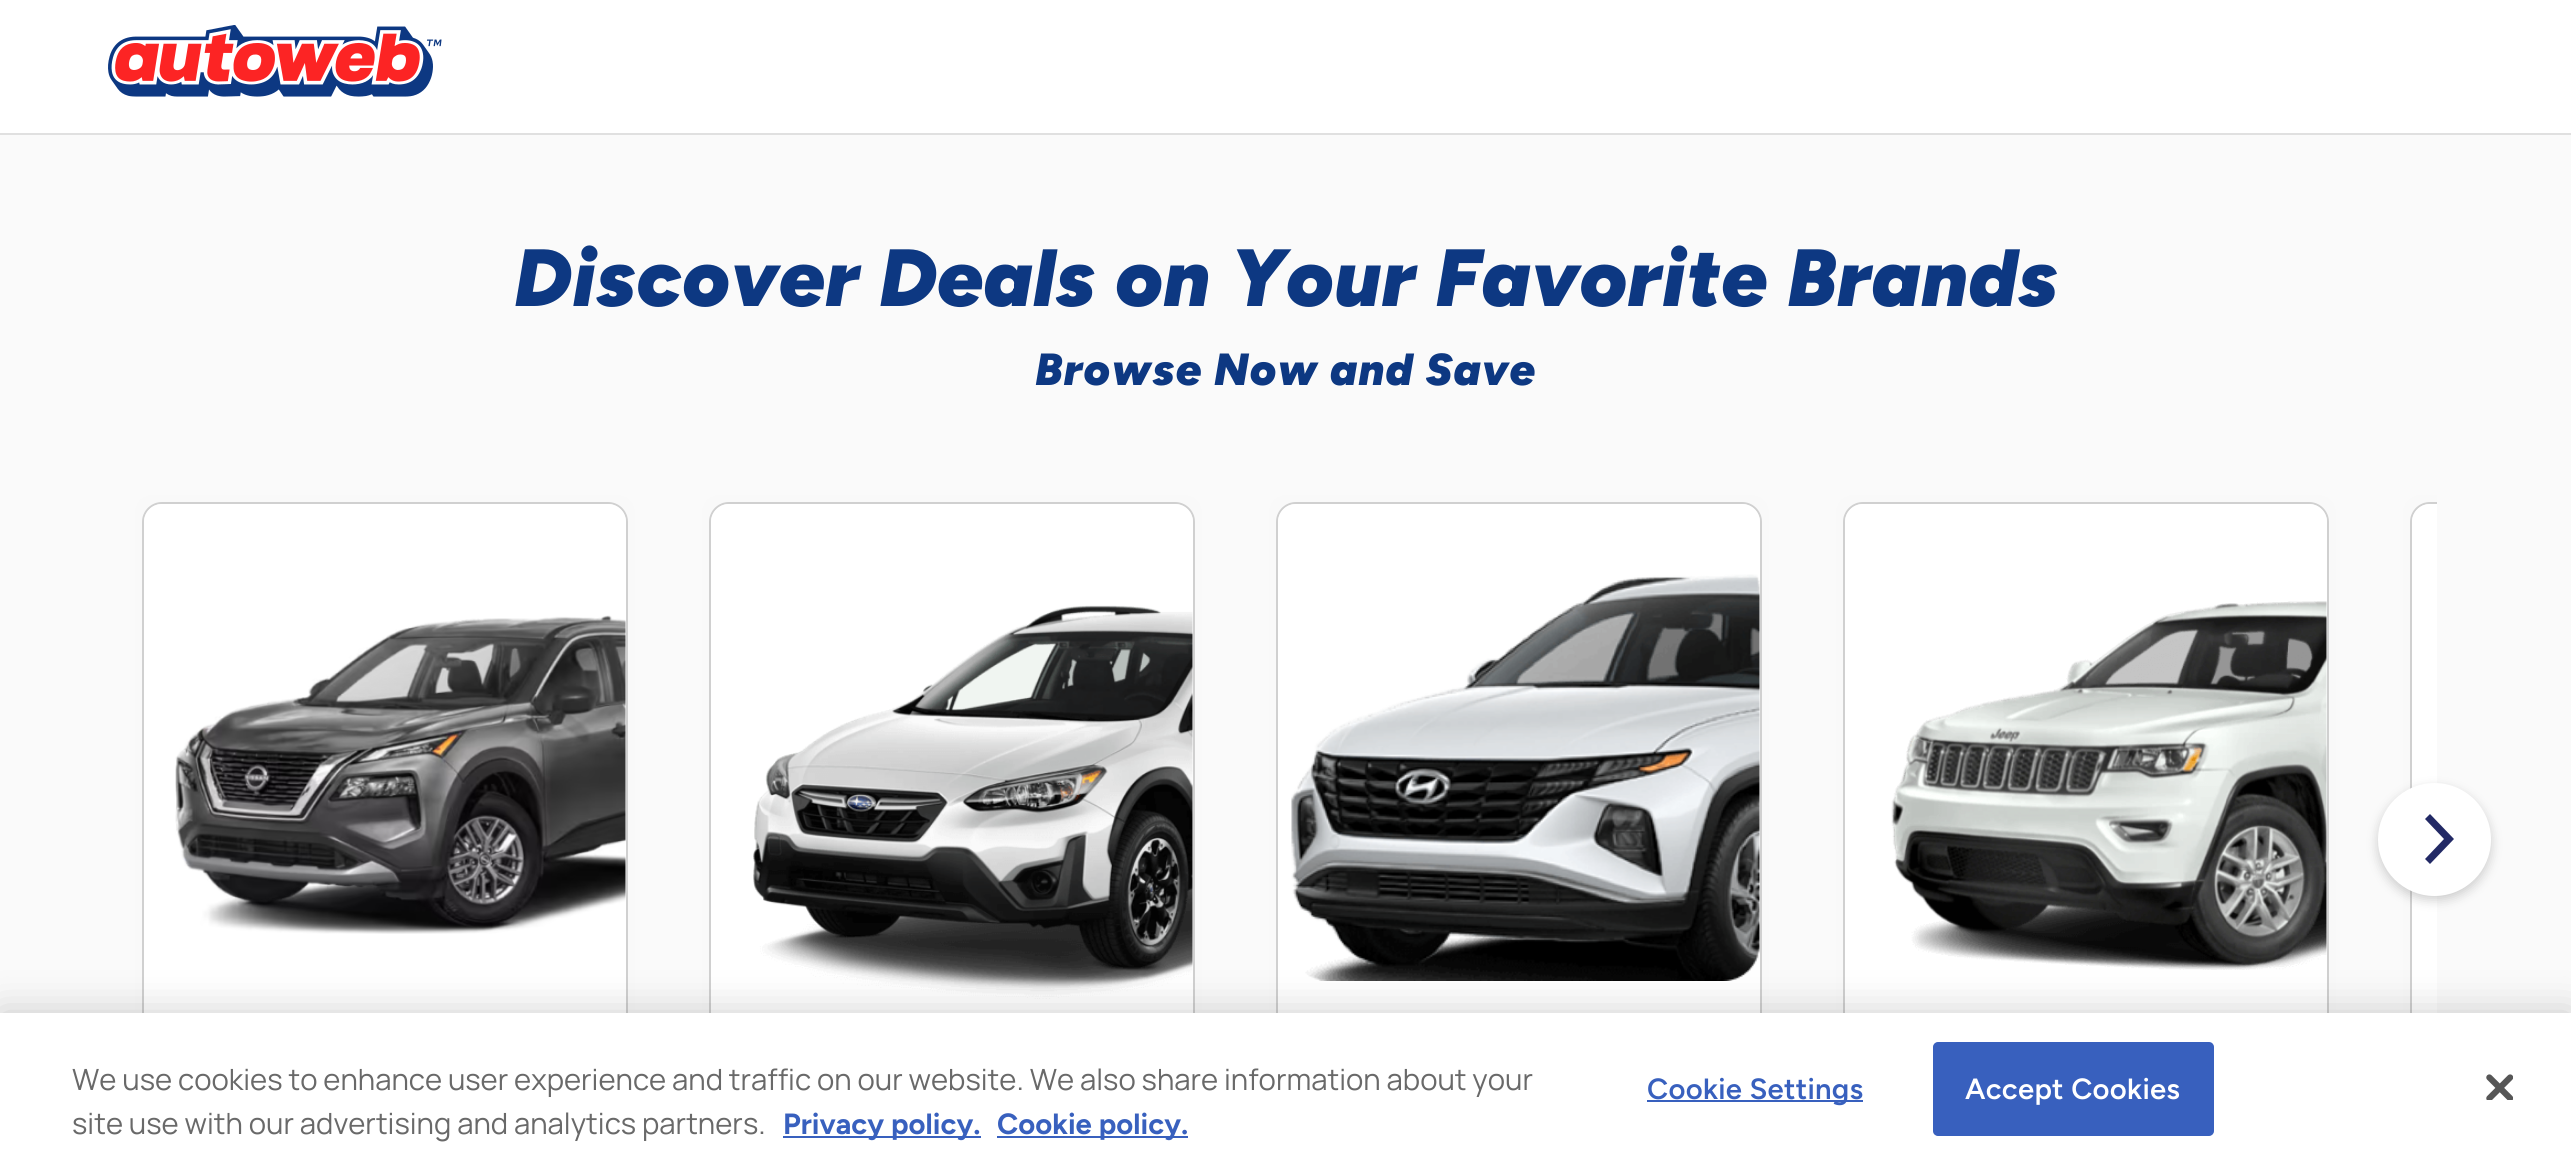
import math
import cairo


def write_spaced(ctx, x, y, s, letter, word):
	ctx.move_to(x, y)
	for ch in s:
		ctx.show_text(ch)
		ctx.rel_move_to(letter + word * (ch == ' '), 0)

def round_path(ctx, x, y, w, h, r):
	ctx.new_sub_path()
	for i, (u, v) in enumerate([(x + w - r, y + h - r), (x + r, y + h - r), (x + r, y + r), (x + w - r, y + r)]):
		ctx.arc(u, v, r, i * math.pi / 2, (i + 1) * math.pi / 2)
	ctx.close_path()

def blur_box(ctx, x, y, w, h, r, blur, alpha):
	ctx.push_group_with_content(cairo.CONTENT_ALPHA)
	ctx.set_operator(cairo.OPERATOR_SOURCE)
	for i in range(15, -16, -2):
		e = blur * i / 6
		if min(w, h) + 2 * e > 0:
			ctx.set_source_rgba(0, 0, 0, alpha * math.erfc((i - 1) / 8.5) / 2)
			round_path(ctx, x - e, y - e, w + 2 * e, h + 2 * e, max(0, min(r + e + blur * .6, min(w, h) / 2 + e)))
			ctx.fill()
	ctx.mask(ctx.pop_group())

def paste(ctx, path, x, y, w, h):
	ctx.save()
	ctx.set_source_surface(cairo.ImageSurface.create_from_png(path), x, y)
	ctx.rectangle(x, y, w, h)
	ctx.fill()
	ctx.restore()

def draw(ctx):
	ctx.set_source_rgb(1, 1, 1)
	ctx.paint()
	ctx.set_source_rgb(0.878, 0.878, 0.878)
	ctx.rectangle(0, 133, 2571, 2)
	ctx.fill()
	paste(ctx, 'media/1.png', 108, 25, 334, 72)
	ctx.set_source_rgb(0.98, 0.98, 0.98)
	ctx.rectangle(0, 135, 2571, 878)
	ctx.fill()
	ctx.select_font_face('Figtree Black', cairo.FONT_SLANT_ITALIC)
	ctx.set_font_size(81)
	ctx.set_source_rgb(0.051, 0.22, 0.51)
	write_spaced(ctx, 514, 306, 'Discover Deals on Your Favorite Brands', 0.55, 0)
	ctx.set_font_size(45)
	write_spaced(ctx, 1035, 385, 'Browse Now and Save', 1.1, 0)
	ctx.set_source_rgb(0.973, 0.973, 0.973)
	round_path(ctx, 135, 495, 500, 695, 18)
	ctx.fill()
	round_path(ctx, 143, 503, 484, 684, 19)
	ctx.set_source_rgb(0.816, 0.816, 0.816)
	ctx.stroke()
	ctx.set_source_rgb(1, 1, 1)
	round_path(ctx, 144, 504, 482, 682, 18)
	ctx.fill()
	paste(ctx, 'media/2.png', 175, 615, 451, 319)
	ctx.set_source_rgb(0.973, 0.973, 0.973)
	round_path(ctx, 702, 495, 500, 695, 18)
	ctx.fill()
	round_path(ctx, 710, 503, 484, 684, 19)
	ctx.set_source_rgb(0.816, 0.816, 0.816)
	ctx.stroke()
	ctx.set_source_rgb(1, 1, 1)
	round_path(ctx, 711, 504, 482, 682, 18)
	ctx.fill()
	paste(ctx, 'media/3.png', 753, 605, 440, 394)
	ctx.set_source_rgb(0.973, 0.973, 0.973)
	round_path(ctx, 1269, 495, 500, 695, 18)
	ctx.fill()
	round_path(ctx, 1277, 503, 484, 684, 19)
	ctx.set_source_rgb(0.816, 0.816, 0.816)
	ctx.stroke()
	ctx.set_source_rgb(1, 1, 1)
	round_path(ctx, 1278, 504, 482, 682, 18)
	ctx.fill()
	paste(ctx, 'media/4.png', 1291, 574, 469, 407)
	ctx.set_source_rgb(0.973, 0.973, 0.973)
	round_path(ctx, 1836, 495, 500, 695, 18)
	ctx.fill()
	round_path(ctx, 1844, 503, 484, 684, 19)
	ctx.set_source_rgb(0.816, 0.816, 0.816)
	ctx.stroke()
	ctx.set_source_rgb(1, 1, 1)
	round_path(ctx, 1845, 504, 482, 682, 18)
	ctx.fill()
	paste(ctx, 'media/5.png', 1891, 601, 436, 369)
	ctx.set_source_rgb(0.973, 0.973, 0.973)
	ctx.new_path()
	ctx.move_to(2421, 495)
	ctx.line_to(2437, 495)
	ctx.line_to(2437, 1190)
	ctx.line_to(2421, 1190)
	ctx.curve_to(2411, 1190, 2403, 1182, 2403, 1172)
	ctx.line_to(2403, 513)
	ctx.curve_to(2403, 503, 2411, 495, 2421, 495)
	ctx.close_path()
	ctx.fill()
	ctx.save()
	ctx.rectangle(135, 495, 2302, 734)
	ctx.clip()
	round_path(ctx, 2411, 503, 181, 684, 19)
	ctx.set_source_rgb(0.816, 0.816, 0.816)
	ctx.stroke()
	ctx.restore()
	ctx.set_source_rgb(1, 1, 1)
	ctx.new_path()
	ctx.move_to(2430, 504)
	ctx.line_to(2437, 504)
	ctx.line_to(2437, 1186)
	ctx.line_to(2430, 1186)
	ctx.curve_to(2420, 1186, 2412, 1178, 2412, 1168)
	ctx.line_to(2412, 522)
	ctx.curve_to(2412, 512, 2420, 504, 2430, 504)
	ctx.close_path()
	ctx.fill()
	ctx.set_source_rgb(0.365, 0.365, 0.365)
	blur_box(ctx, 2378, 788, 113, 112, 56, 5.5, 0.3)
	ctx.set_source_rgb(1, 1, 1)
	ctx.arc(2434.5, 839.5, 56.5, 0, 2 * math.pi)
	ctx.fill()
	ctx.set_source_rgb(0.133, 0.161, 0.396)
	ctx.new_path()
	ctx.move_to(2454, 839)
	ctx.line_to(2430, 814)
	ctx.line_to(2425, 819)
	ctx.line_to(2444, 839)
	ctx.line_to(2425, 859)
	ctx.line_to(2430, 864)
	ctx.close_path()
	ctx.fill()
	ctx.set_source_rgb(0, 0, 0)
	blur_box(ctx, 0, 1013, 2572, 159, 0, 20, 0.2)
	ctx.set_source_rgb(1, 1, 1)
	ctx.rectangle(0, 1013, 2571, 159)
	ctx.fill()
	ctx.select_font_face('Manrope')
	ctx.set_font_size(29.25)
	ctx.set_source_rgb(0.412, 0.412, 0.412)
	ctx.move_to(72, 1090)
	ctx.show_text('We use cookies to enhance user experience and traffic on our website. We also share information about your')
	ctx.move_to(72, 1134)
	ctx.show_text('site use with our advertising and analytics partners.')
	ctx.set_source_rgb(0.22, 0.376, 0.745)
	ctx.rectangle(783, 1136, 198, 2)
	ctx.fill()
	ctx.select_font_face('Figtree', cairo.FONT_SLANT_NORMAL, cairo.FONT_WEIGHT_BOLD)
	ctx.move_to(783, 1134)
	ctx.show_text('Privacy policy.')
	ctx.rectangle(997, 1136, 191, 2)
	ctx.fill()
	ctx.move_to(997, 1134)
	ctx.show_text('Cookie policy.')
	ctx.rectangle(1647, 1100, 216, 2)
	ctx.fill()
	ctx.select_font_face('Figtree SemiBold')
	write_spaced(ctx, 1647, 1099, 'Cookie Settings', 0.25, 0)
	round_path(ctx, 1934, 1043, 279, 92, 4)
	ctx.fill_preserve()
	ctx.stroke()
	ctx.set_source_rgb(1, 1, 1)
	write_spaced(ctx, 1965, 1099, 'Accept Cookies', 0.25, 0)
	paste(ctx, 'media/6.png', 2486, 1074, 27, 26)


surface = cairo.ImageSurface(cairo.FORMAT_RGB24, 2571, 1172)
ctx = cairo.Context(surface)
options = cairo.FontOptions()
options.set_hint_metrics(cairo.HINT_METRICS_OFF)
options.set_hint_style(cairo.HINT_STYLE_NONE)
ctx.set_font_options(options)
ctx.set_miter_limit(4)
draw(ctx)
surface.write_to_png('image.png')
